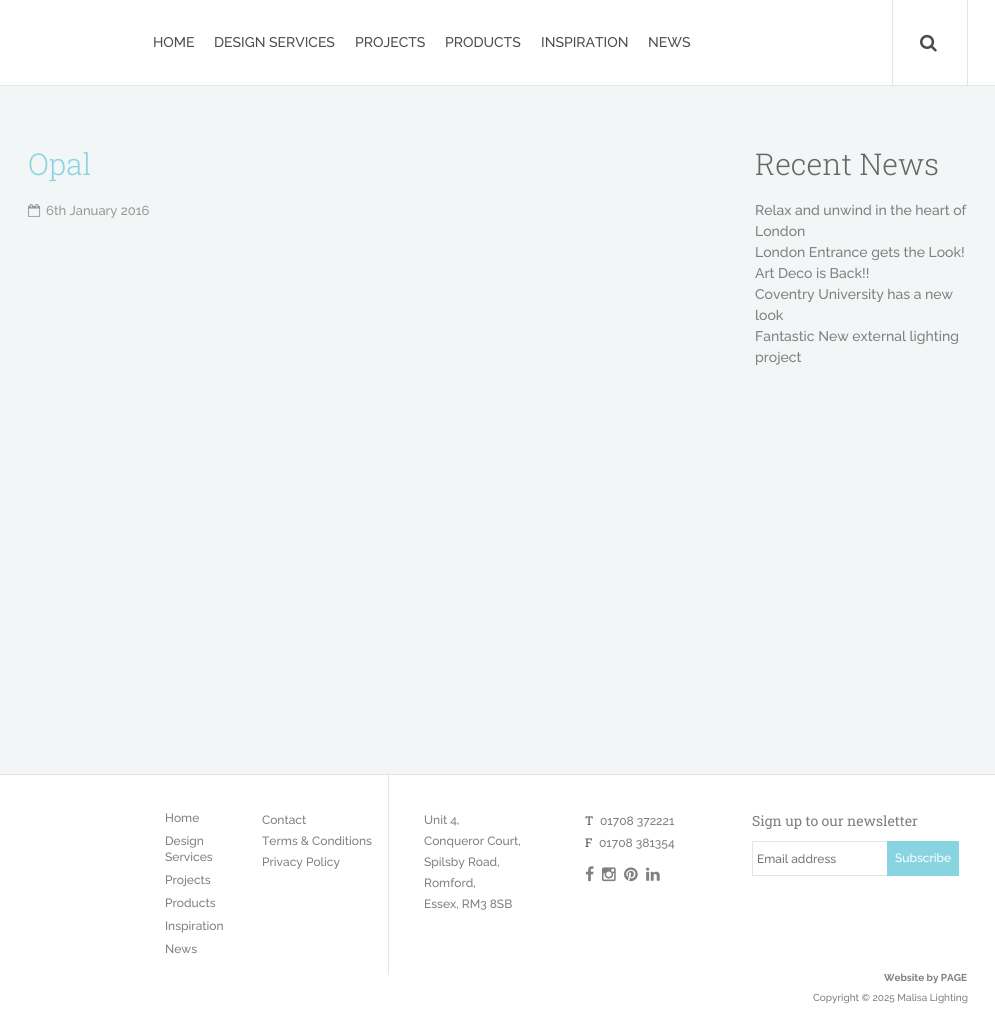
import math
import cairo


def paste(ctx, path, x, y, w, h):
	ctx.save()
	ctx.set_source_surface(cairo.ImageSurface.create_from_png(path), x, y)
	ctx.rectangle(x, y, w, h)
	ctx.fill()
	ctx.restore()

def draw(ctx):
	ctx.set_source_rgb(0.953, 0.961, 0.961)
	ctx.paint()
	ctx.set_source_rgb(1, 1, 1)
	ctx.rectangle(0, 0, 995, 85)
	ctx.fill()
	ctx.set_source_rgb(0.898, 0.898, 0.898)
	ctx.rectangle(0, 85, 995, 1)
	ctx.fill()
	ctx.select_font_face('Raleway Medium')
	ctx.set_font_size(14)
	ctx.set_source_rgb(0.302, 0.302, 0.302)
	for x, y, s in [
		(153, 47, 'HOME'),
		(214, 47, 'DESIGN SERVICES'),
		(355, 47, 'PROJECTS'),
		(445, 47, 'PRODUCTS'),
		(541, 47, 'INSPIRATION'),
		(648, 47, 'NEWS'),
	]:
		ctx.move_to(x, y)
		ctx.show_text(s)
	ctx.set_source_rgb(0.898, 0.898, 0.898)
	ctx.rectangle(892, 0, 1, 85)
	ctx.fill()
	ctx.rectangle(967, 0, 1, 85)
	ctx.fill()
	paste(ctx, 'media/1.png', 920, 34, 17, 18)
	ctx.select_font_face('Roboto Slab Light')
	ctx.set_font_size(30)
	ctx.set_source_rgb(0.533, 0.831, 0.878)
	ctx.move_to(28, 175)
	ctx.show_text('Opal')
	paste(ctx, 'media/2.png', 28, 203, 13, 14)
	ctx.select_font_face('Raleway Medium')
	ctx.set_font_size(13)
	ctx.set_source_rgb(0.6, 0.6, 0.6)
	ctx.move_to(46, 215)
	ctx.show_text('6th January 2016')
	ctx.select_font_face('Roboto Slab Light')
	ctx.set_font_size(30)
	ctx.set_source_rgb(0.4, 0.4, 0.4)
	ctx.move_to(755, 175)
	ctx.show_text('Recent News')
	ctx.select_font_face('Raleway Medium')
	ctx.set_font_size(14)
	ctx.set_source_rgb(0.502, 0.502, 0.502)
	for x, y, s in [
		(755, 215, 'Relax and unwind in the heart of'),
		(755, 236, 'London'),
		(755, 257, 'London Entrance gets the Look!'),
		(755, 278, 'Art Deco is Back!!'),
		(755, 299, 'Coventry University has a new'),
		(755, 320, 'look'),
		(755, 341, 'Fantastic New external lighting'),
		(755, 362, 'project'),
	]:
		ctx.move_to(x, y)
		ctx.show_text(s)
	ctx.set_source_rgb(1, 1, 1)
	ctx.rectangle(0, 775, 995, 239)
	ctx.fill()
	ctx.set_source_rgb(0.898, 0.898, 0.898)
	ctx.rectangle(0, 774, 995, 1)
	ctx.fill()
	ctx.set_font_size(12)
	ctx.set_source_rgb(0.502, 0.502, 0.502)
	for x, y, s in [
		(165, 822, 'Home'),
		(165, 845, 'Design'),
		(165, 861, 'Services'),
		(165, 884, 'Projects'),
		(165, 907, 'Products'),
		(165, 930, 'Inspiration'),
		(165, 953, 'News'),
		(262, 824, 'Contact'),
		(262, 845, 'Terms & Conditions'),
		(262, 866, 'Privacy Policy'),
	]:
		ctx.move_to(x, y)
		ctx.show_text(s)
	ctx.set_source_rgb(0.898, 0.898, 0.898)
	ctx.rectangle(388, 775, 1, 200)
	ctx.fill()
	ctx.set_source_rgb(0.502, 0.502, 0.502)
	for x, y, s in [
		(424, 824, 'Unit 4,'),
		(424, 845, 'Conqueror Court,'),
		(424, 866, 'Spilsby Road,'),
		(424, 887, 'Romford,'),
		(424, 908, 'Essex, RM3 8SB'),
	]:
		ctx.move_to(x, y)
		ctx.show_text(s)
	ctx.select_font_face('Roboto Slab')
	ctx.set_source_rgb(0.302, 0.302, 0.302)
	ctx.move_to(585, 825)
	ctx.show_text('T')
	ctx.select_font_face('Raleway Medium')
	ctx.set_source_rgb(0.502, 0.502, 0.502)
	ctx.move_to(600, 825)
	ctx.show_text('01708 372221')
	ctx.select_font_face('Roboto Slab')
	ctx.set_source_rgb(0.302, 0.302, 0.302)
	ctx.move_to(585, 847)
	ctx.show_text('F')
	ctx.select_font_face('Raleway Medium')
	ctx.set_source_rgb(0.502, 0.502, 0.502)
	ctx.move_to(599, 847)
	ctx.show_text('01708 381354')
	paste(ctx, 'media/3.png', 585, 866, 9, 16)
	paste(ctx, 'media/4.png', 602, 867, 14, 15)
	paste(ctx, 'media/5.png', 624, 867, 14, 15)
	paste(ctx, 'media/6.png', 646, 867, 14, 14)
	ctx.select_font_face('Roboto Slab')
	ctx.set_font_size(14)
	ctx.move_to(752, 826)
	ctx.show_text('Sign up to our newsletter')
	ctx.set_source_rgb(0.898, 0.898, 0.898)
	ctx.rectangle(752, 841, 135, 1)
	ctx.rectangle(752, 875, 135, 1)
	ctx.rectangle(752, 841, 1, 35)
	ctx.fill()
	ctx.select_font_face('Raleway Medium')
	ctx.set_font_size(12)
	ctx.set_source_rgb(0.459, 0.459, 0.459)
	ctx.move_to(757, 863)
	ctx.show_text('Email address')
	ctx.set_source_rgb(0.533, 0.831, 0.878)
	ctx.rectangle(887, 841, 72, 35)
	ctx.fill()
	ctx.set_source_rgb(1, 1, 1)
	ctx.move_to(895, 862)
	ctx.show_text('Subscribe')
	ctx.select_font_face('Raleway', cairo.FONT_SLANT_NORMAL, cairo.FONT_WEIGHT_BOLD)
	ctx.set_font_size(10)
	ctx.set_source_rgb(0.502, 0.502, 0.502)
	ctx.move_to(884, 981)
	ctx.show_text('Website by PAGE')
	ctx.select_font_face('Raleway Medium')
	ctx.move_to(813, 1001)
	ctx.show_text('Copyright © 2025 Malisa Lighting')


surface = cairo.ImageSurface(cairo.FORMAT_RGB24, 995, 1014)
ctx = cairo.Context(surface)
options = cairo.FontOptions()
options.set_hint_metrics(cairo.HINT_METRICS_OFF)
options.set_hint_style(cairo.HINT_STYLE_NONE)
ctx.set_font_options(options)
ctx.set_miter_limit(4)
draw(ctx)
surface.write_to_png('image.png')
